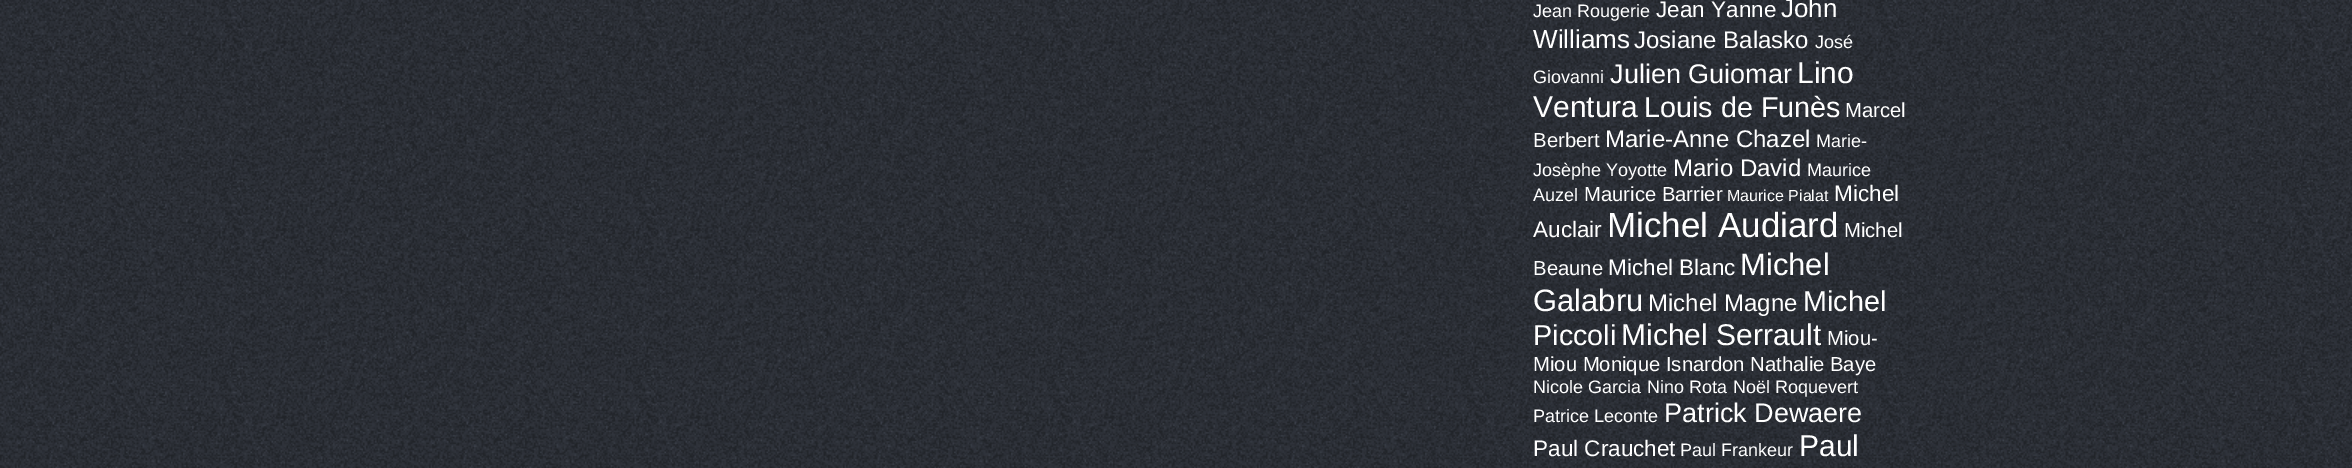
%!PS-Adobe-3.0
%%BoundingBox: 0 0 2352 468
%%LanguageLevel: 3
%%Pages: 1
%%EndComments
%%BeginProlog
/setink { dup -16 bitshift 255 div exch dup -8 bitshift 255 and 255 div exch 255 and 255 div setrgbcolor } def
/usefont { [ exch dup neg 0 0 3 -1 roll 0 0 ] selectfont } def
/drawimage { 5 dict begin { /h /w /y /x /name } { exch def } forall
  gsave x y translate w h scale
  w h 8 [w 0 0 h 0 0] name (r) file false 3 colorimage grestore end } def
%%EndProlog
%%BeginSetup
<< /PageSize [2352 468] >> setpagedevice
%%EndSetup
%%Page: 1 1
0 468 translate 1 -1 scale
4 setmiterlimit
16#FFFFFF setink
0 0 2352 468 rectfill
(img1.raw) 0 0 2352 468 drawimage
/LiberationSans-Regular 18 usefont
1533 17 moveto (Jean Rougerie) show
/LiberationSans-Regular 22.5 usefont
1656 17 moveto (Jean Yanne) show
/LiberationSans-Regular 26 usefont
1781 17 moveto (John) show
1533 48 moveto (Williams) show
/LiberationSans-Regular 24 usefont
1634 48 moveto (Josiane Balasko) show
/LiberationSans-Regular 18 usefont
1815 48 moveto (José) show
1533 83 moveto (Giovanni) show
/LiberationSans-Regular 27 usefont
1610 83 moveto (Julien Guiomar) show
/LiberationSans-Regular 30 usefont
1797 83 moveto (Lino) show
1533 117 moveto (Ventura) show
/LiberationSans-Regular 28.75 usefont
1644 117 moveto (Louis de Funès) show
/LiberationSans-Regular 20.25 usefont
1845 117 moveto (Marcel) show
1533 147 moveto (Berbert) show
/LiberationSans-Regular 24 usefont
1605 147 moveto (Marie-Anne Chazel) show
/LiberationSans-Regular 18 usefont
1816 147 moveto (Marie-) show
1533 176 moveto (Josèphe Yoyotte) show
/LiberationSans-Regular 24 usefont
1673 176 moveto (Mario David) show
/LiberationSans-Regular 18 usefont
1807 176 moveto (Maurice) show
1533 201 moveto (Auzel) show
/LiberationSans-Regular 20.25 usefont
1584 201 moveto (Maurice Barrier) show
/LiberationSans-Regular 16 usefont
1727 201 moveto (Maurice Pialat) show
/LiberationSans-Regular 22.5 usefont
1834 201 moveto (Michel) show
1533 237 moveto (Auclair) show
/LiberationSans-Regular 35 usefont
1607 237 moveto (Michel Audiard) show
/LiberationSans-Regular 20.25 usefont
1844 237 moveto (Michel) show
1533 275 moveto (Beaune) show
/LiberationSans-Regular 22.5 usefont
1608 275 moveto (Michel Blanc) show
/LiberationSans-Regular 31 usefont
1740 275 moveto (Michel) show
1533 311 moveto (Galabru) show
/LiberationSans-Regular 24 usefont
1648 311 moveto (Michel Magne) show
/LiberationSans-Regular 28.75 usefont
1803 311 moveto (Michel) show
1533 345 moveto (Piccoli) show
/LiberationSans-Regular 30 usefont
1621 345 moveto (Michel Serrault) show
/LiberationSans-Regular 20.25 usefont
[
    [(Miou-) 1827 345]
    [(Miou Monique Isnardon) 1533 371]
    [(Nathalie Baye) 1750 371]
] { aload pop moveto show } forall
/LiberationSans-Regular 18 usefont
[
    [(Nicole Garcia) 1533 393]
    [(Nino Rota) 1647 393]
    [(Noël Roquevert) 1733 393]
    [(Patrice Leconte) 1533 422]
] { aload pop moveto show } forall
/LiberationSans-Regular 27 usefont
1664 422 moveto (Patrick Dewaere) show
/LiberationSans-Regular 22.5 usefont
1533 456 moveto (Paul Crauchet) show
/LiberationSans-Regular 18 usefont
1680 456 moveto (Paul Frankeur) show
/LiberationSans-Regular 30 usefont
1799 456 moveto (Paul) show
showpage
%%EOF
